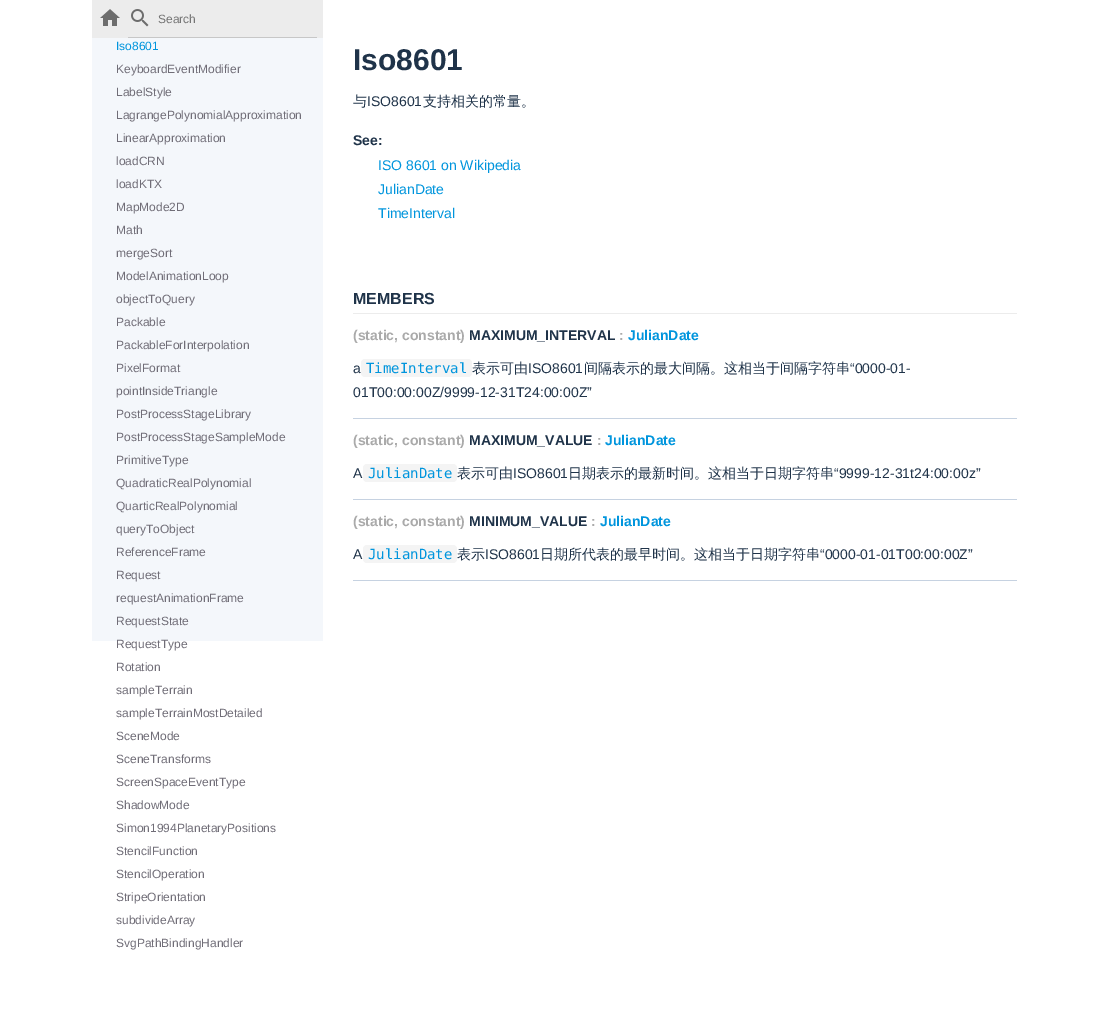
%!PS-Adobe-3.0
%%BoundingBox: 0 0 1109 1032
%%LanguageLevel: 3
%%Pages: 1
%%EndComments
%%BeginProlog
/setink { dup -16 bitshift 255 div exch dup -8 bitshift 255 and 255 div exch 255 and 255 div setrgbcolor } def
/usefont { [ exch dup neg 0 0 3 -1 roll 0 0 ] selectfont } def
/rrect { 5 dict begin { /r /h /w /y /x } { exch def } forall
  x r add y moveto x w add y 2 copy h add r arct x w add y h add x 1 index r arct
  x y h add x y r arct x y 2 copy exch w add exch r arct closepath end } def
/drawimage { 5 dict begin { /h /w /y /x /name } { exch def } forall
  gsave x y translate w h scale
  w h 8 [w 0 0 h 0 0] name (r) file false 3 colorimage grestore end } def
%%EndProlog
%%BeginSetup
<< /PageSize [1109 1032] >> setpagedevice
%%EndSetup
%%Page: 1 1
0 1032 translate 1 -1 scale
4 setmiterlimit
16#FFFFFF setink
0 0 1109 1032 rectfill
16#F4F7FB setink
92 38 231 603 rectfill
16#ECECEC setink
92 0 231 38 rectfill
(img1.raw) 100 9 20 17 drawimage
(img2.raw) 131 9 18 18 drawimage
16#C7C7C7 setink
128 37 189 1 rectfill
/LiberationSans-Regular 12 usefont
16#757575 setink
158 23 moveto (Search) show
16#0095DD setink
116 50 moveto (Iso8601) show
16#706D77 setink
[
    [(KeyboardEventModifier) 116 73]
    [(LabelStyle) 116 96]
    [(LagrangePolynomialApproximation) 116 119]
    [(LinearApproximation) 116 142]
    [(loadCRN) 116 165]
    [(loadKTX) 116 188]
    [(MapMode2D) 116 211]
    [(Math) 116 234]
    [(mergeSort) 116 257]
    [(ModelAnimationLoop) 116 280]
    [(objectToQuery) 116 303]
    [(Packable) 116 326]
    [(PackableForInterpolation) 116 349]
    [(PixelFormat) 116 372]
    [(pointInsideTriangle) 116 395]
    [(PostProcessStageLibrary) 116 418]
    [(PostProcessStageSampleMode) 116 441]
    [(PrimitiveType) 116 464]
    [(QuadraticRealPolynomial) 116 487]
    [(QuarticRealPolynomial) 116 510]
    [(queryToObject) 116 533]
    [(ReferenceFrame) 116 556]
    [(Request) 116 579]
    [(requestAnimationFrame) 116 602]
    [(RequestState) 116 625]
    [(RequestType) 116 648]
    [(Rotation) 116 671]
    [(sampleTerrain) 116 694]
    [(sampleTerrainMostDetailed) 116 717]
    [(SceneMode) 116 740]
    [(SceneTransforms) 116 763]
    [(ScreenSpaceEventType) 116 786]
    [(ShadowMode) 116 809]
    [(Simon1994PlanetaryPositions) 116 832]
    [(StencilFunction) 116 855]
    [(StencilOperation) 116 878]
    [(StripeOrientation) 116 901]
    [(subdivideArray) 116 924]
    [(SvgPathBindingHandler) 116 947]
] { aload pop moveto show } forall
/LiberationSans-Bold 30 usefont
16#1F3349 setink
353 70 moveto (Iso8601) show
/WenQuanYiZenHei-Medium 14 usefont
353 106 moveto (与) show
/LiberationSans-Regular 14 usefont
367 106 moveto (ISO8601) show
/WenQuanYiZenHei-Medium 14 usefont
423 106 moveto (支持相关的常量。) show
/LiberationSans-Bold 14 usefont
353 145 moveto (See:) show
/LiberationSans-Regular 14 usefont
16#0095DD setink
[
    [(ISO 8601 on Wikipedia) 378 170]
    [(JulianDate) 378 194]
    [(TimeInterval) 378 218]
] { aload pop moveto show } forall
16#ECECEC setink
353 313 664 1 rectfill
/LiberationSans-Bold 16 usefont
16#1F3349 setink
353 304 moveto (MEMBERS) show
/LiberationSans-Bold 14 usefont
16#AAAAAA setink
353 340 moveto (\(static, constant\)) show
16#1F3349 setink
469 340 moveto (MAXIMUM_INTERVAL) show
16#AAAAAA setink
619 340 moveto (:) show
16#0095DD setink
628 340 moveto (JulianDate) show
/LiberationSans-Regular 14 usefont
16#1F3349 setink
353 373 moveto (a) show
16#F4F4F4 setink
361 359 111 18 4 rrect fill
/DejaVuSansMono-Regular 14 usefont
16#0095DD setink
366 373 moveto (TimeInterval) show
/WenQuanYiZenHei-Medium 14 usefont
16#1F3349 setink
472 373 moveto (表示可由) show
/LiberationSans-Regular 14 usefont
528 373 moveto (ISO8601) show
/WenQuanYiZenHei-Medium 14 usefont
584 373 moveto (间隔表示的最大间隔。这相当于间隔字符串) show
/LiberationSans-Regular 14 usefont
850 373 moveto (“0000-01-) show
353 397 moveto (01T00:00:00Z/9999-12-31T24:00:00Z”) show
16#C6D2E1 setink
353 418 664 1 rectfill
/LiberationSans-Bold 14 usefont
16#AAAAAA setink
353 445 moveto (\(static, constant\)) show
16#1F3349 setink
469 445 moveto (MAXIMUM_VALUE) show
16#AAAAAA setink
597 445 moveto (:) show
16#0095DD setink
605 445 moveto (JulianDate) show
/LiberationSans-Regular 14 usefont
16#1F3349 setink
353 478 moveto (A) show
16#F4F4F4 setink
363 464 94 18 4 rrect fill
/DejaVuSansMono-Regular 14 usefont
16#0095DD setink
368 478 moveto (JulianDate) show
/WenQuanYiZenHei-Medium 14 usefont
16#1F3349 setink
457 478 moveto (表示可由) show
/LiberationSans-Regular 14 usefont
513 478 moveto (ISO8601) show
/WenQuanYiZenHei-Medium 14 usefont
568 478 moveto (日期表示的最新时间。这相当于日期字符串) show
/LiberationSans-Regular 14 usefont
834 478 moveto (“9999-12-31t24:00:00z”) show
16#C6D2E1 setink
353 499 664 1 rectfill
/LiberationSans-Bold 14 usefont
16#AAAAAA setink
353 526 moveto (\(static, constant\)) show
16#1F3349 setink
469 526 moveto (MINIMUM_VALUE) show
16#AAAAAA setink
591 526 moveto (:) show
16#0095DD setink
600 526 moveto (JulianDate) show
/LiberationSans-Regular 14 usefont
16#1F3349 setink
353 559 moveto (A) show
16#F4F4F4 setink
363 545 94 18 4 rrect fill
/DejaVuSansMono-Regular 14 usefont
16#0095DD setink
368 559 moveto (JulianDate) show
/WenQuanYiZenHei-Medium 14 usefont
16#1F3349 setink
457 559 moveto (表示) show
/LiberationSans-Regular 14 usefont
485 559 moveto (ISO8601) show
/WenQuanYiZenHei-Medium 14 usefont
540 559 moveto (日期所代表的最早时间。这相当于日期字符串) show
/LiberationSans-Regular 14 usefont
820 559 moveto (“0000-01-01T00:00:00Z”) show
16#C6D2E1 setink
353 580 664 1 rectfill
showpage
%%EOF
